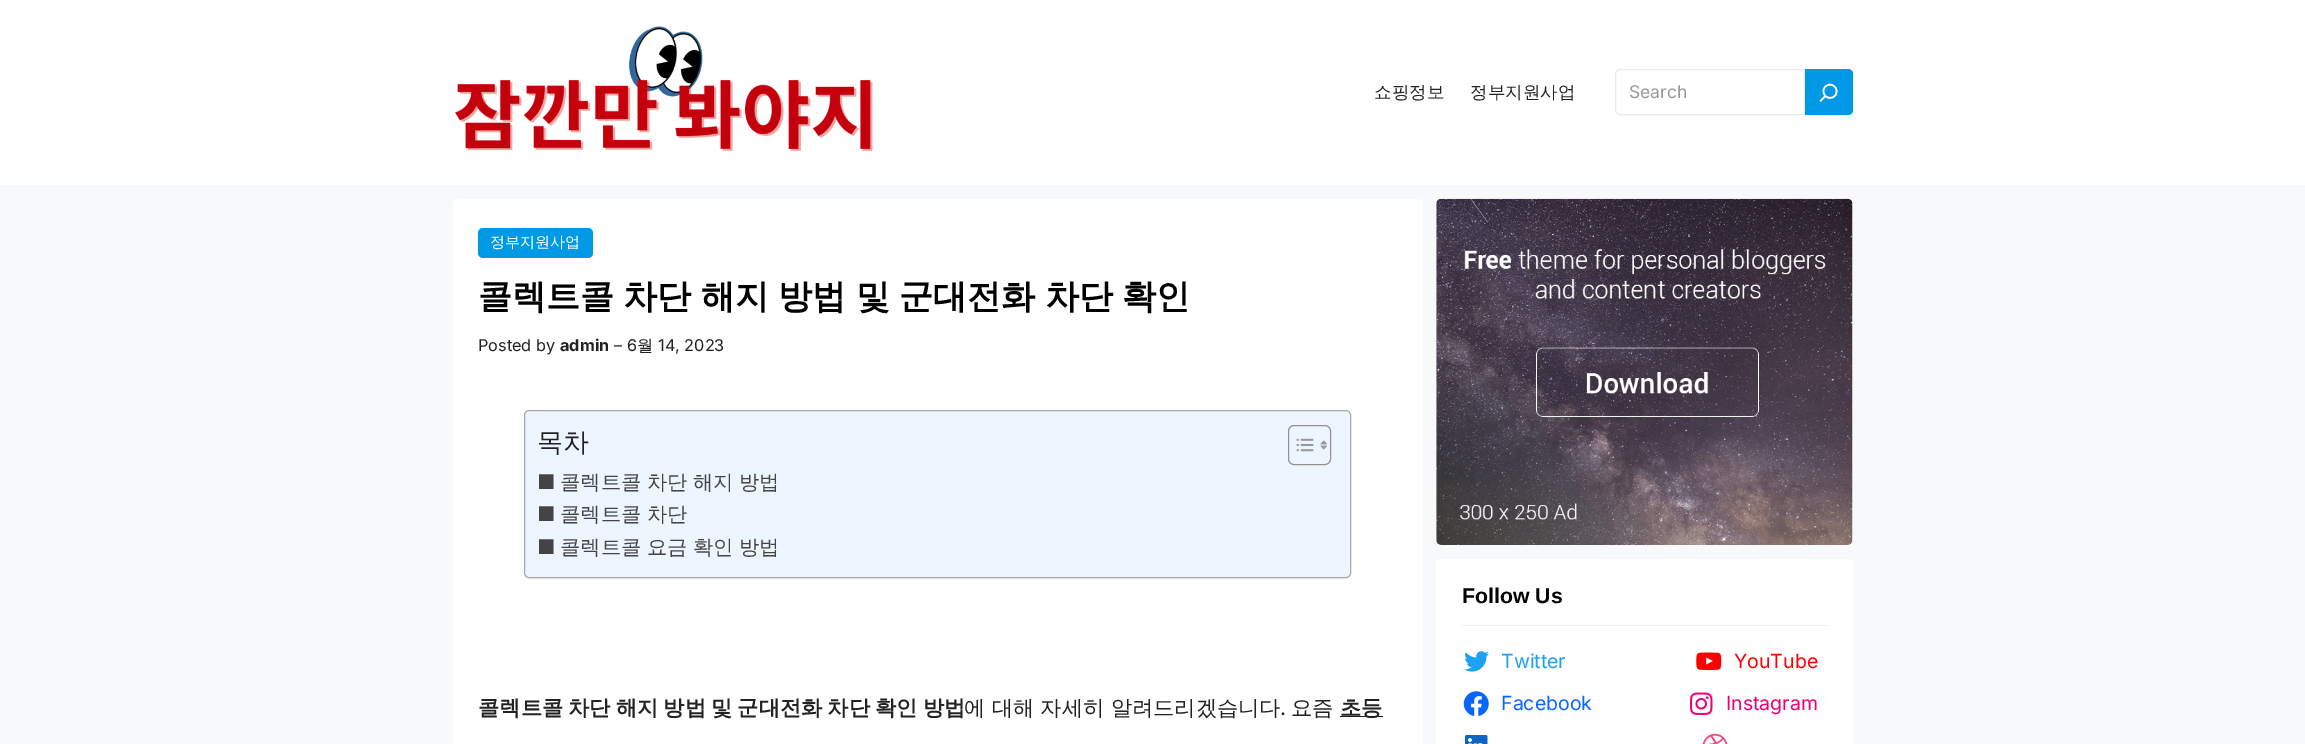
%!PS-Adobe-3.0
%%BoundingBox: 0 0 2305 744
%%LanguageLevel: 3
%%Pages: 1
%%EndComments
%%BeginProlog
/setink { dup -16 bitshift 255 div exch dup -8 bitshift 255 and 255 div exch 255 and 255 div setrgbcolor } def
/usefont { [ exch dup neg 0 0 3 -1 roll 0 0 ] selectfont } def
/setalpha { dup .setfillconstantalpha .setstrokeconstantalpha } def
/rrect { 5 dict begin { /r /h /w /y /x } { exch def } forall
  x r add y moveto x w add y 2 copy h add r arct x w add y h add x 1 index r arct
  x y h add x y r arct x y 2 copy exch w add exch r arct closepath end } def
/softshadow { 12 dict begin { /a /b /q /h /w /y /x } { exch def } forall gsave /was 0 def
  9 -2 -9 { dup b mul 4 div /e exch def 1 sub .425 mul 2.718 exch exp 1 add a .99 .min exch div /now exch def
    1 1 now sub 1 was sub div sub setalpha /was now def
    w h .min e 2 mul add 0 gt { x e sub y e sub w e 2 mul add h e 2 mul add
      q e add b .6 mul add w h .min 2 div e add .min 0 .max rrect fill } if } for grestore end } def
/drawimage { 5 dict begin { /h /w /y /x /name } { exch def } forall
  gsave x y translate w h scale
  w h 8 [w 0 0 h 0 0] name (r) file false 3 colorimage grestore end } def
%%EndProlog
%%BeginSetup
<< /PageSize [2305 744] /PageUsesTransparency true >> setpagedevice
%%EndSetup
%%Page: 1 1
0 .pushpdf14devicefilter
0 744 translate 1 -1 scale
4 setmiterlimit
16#F7F9FA setink
0 0 2305 744 rectfill
16#FFFFFF setink
0 0 2305 185 rectfill
(img1.raw) 455 26 418 125 drawimage
/WenQuanYiZenHei-Medium 17.5 usefont
16#222222 setink
1374 98 moveto (쇼핑정보) show
1470 98 moveto (정부지원사업) show
16#E9E9E9 setink
1620 69.5 moveto 1804.5 69.5 lineto 1804.5 114.5 lineto 1620 114.5 lineto 1617.5 114.5 1615.5 112.5 1615.5 110 curveto 1615.5 74 lineto 1615.5 71.5 1617.5 69.5 1620 69.5 curveto closepath stroke
/Inter-Regular 17.5 usefont
16#999999 setink
1629 98 moveto (Search) show
16#0099E5 setink
1805 69 moveto 1848 69 lineto 1851 69 1853 71 1853 74 curveto 1853 110 lineto 1853 113 1851 115 1848 115 curveto 1805 115 lineto closepath fill
(img2.raw) 1819 83 19 19 drawimage
16#FFFFFF setink
453 199 970 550 5 rrect fill
16#0099E5 setink
478 228 115 30 5 rrect fill
/WenQuanYiZenHei-Medium 15 usefont
16#FFFFFF setink
490 247 moveto (정부지원사업) show
/WenQuanYiZenHei-Bold 34 usefont
16#000000 setink
478 308 moveto -0.75 0 32 (콜렉트콜 차단 해지 방법 및 군대전화 차단 확인) widthshow
/Inter-Regular 16.25 usefont
16#222222 setink
478 351 moveto (Posted by) show
/Inter-Bold 16.25 usefont
560 351 moveto (admin) show
/Inter-Regular 16.25 usefont
614 351 moveto (–) show
627 351 moveto (6) show
/WenQuanYiZenHei-Medium 16.25 usefont
637 351 moveto (월) show
/Inter-Regular 16.25 usefont
658 351 moveto (14, 2023) show
16#000000 setink
524 411 827 168 5 0.5 0.05 softshadow
16#EDF6FF setink
524.5 410.5 826 167 4.5 rrect gsave fill grestore
16#AAAAAA setink
stroke
/WenQuanYiZenHei-Medium 26 usefont
16#222222 setink
537 451 moveto (목차) show
16#999191 setink
1288.5 425.5 42 39 5.5 rrect stroke
(img3.raw) 1296 438 18 14 drawimage
(img4.raw) 1320 440 7 10 drawimage
/Inter-Regular 20.25 usefont
16#444444 setink
537 489 moveto (■) show
/WenQuanYiZenHei-Medium 20.25 usefont
560 489 moveto -0.5 0 32 (콜렉트콜 차단 해지 방법) widthshow
/Inter-Regular 20.25 usefont
537 521 moveto (■) show
/WenQuanYiZenHei-Medium 20.25 usefont
560 521 moveto -0.5 0 32 (콜렉트콜 차단) widthshow
/Inter-Regular 20.25 usefont
537 554 moveto (■) show
/WenQuanYiZenHei-Medium 20.25 usefont
560 554 moveto -0.5 0 32 (콜렉트콜 요금 확인 방법) widthshow
/WenQuanYiZenHei-Bold 21.25 usefont
16#222222 setink
478 715 moveto -1.25 0 32 (콜렉트콜 차단 해지 방법 및 군대전화 차단 확인 방법) widthshow
/WenQuanYiZenHei-Medium 21.25 usefont
964 715 moveto (에 대해 자세히 알려드리겠습니다) show
/Inter-Regular 21.25 usefont
1280 715 moveto (.) show
/WenQuanYiZenHei-Medium 21.25 usefont
1291 715 moveto (요즘) show
1340 716 43 1 rectfill
/WenQuanYiZenHei-Bold 21.25 usefont
1340 715 moveto (초등) show
(img5.raw) 1436 198 417 347 drawimage
16#FFFFFF setink
1436 559 417 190 5 rrect fill
16#F0F0F0 setink
1461 625 367 1 rectfill
/LiberationSans-Bold 21.25 usefont
16#000000 setink
1462 603 moveto (Follow Us) show
(img6.raw) 1464 651 25 21 drawimage
/Inter-Regular 19.5 usefont
16#1DA1F2 setink
1501 668 moveto (Twitter) show
(img7.raw) 1696 652 26 19 drawimage
16#FF0000 setink
1734 668 moveto (YouTube) show
(img8.raw) 1463 691 26 26 drawimage
16#0866FF setink
1501 710 moveto (Facebook) show
(img9.raw) 1690 692 23 23 drawimage
16#F00075 setink
1726 710 moveto (Instagram) show
(img10.raw) 1465 735 23 9 drawimage
(img11.raw) 1702 733 26 11 drawimage
.poppdf14devicefilter showpage
%%EOF
